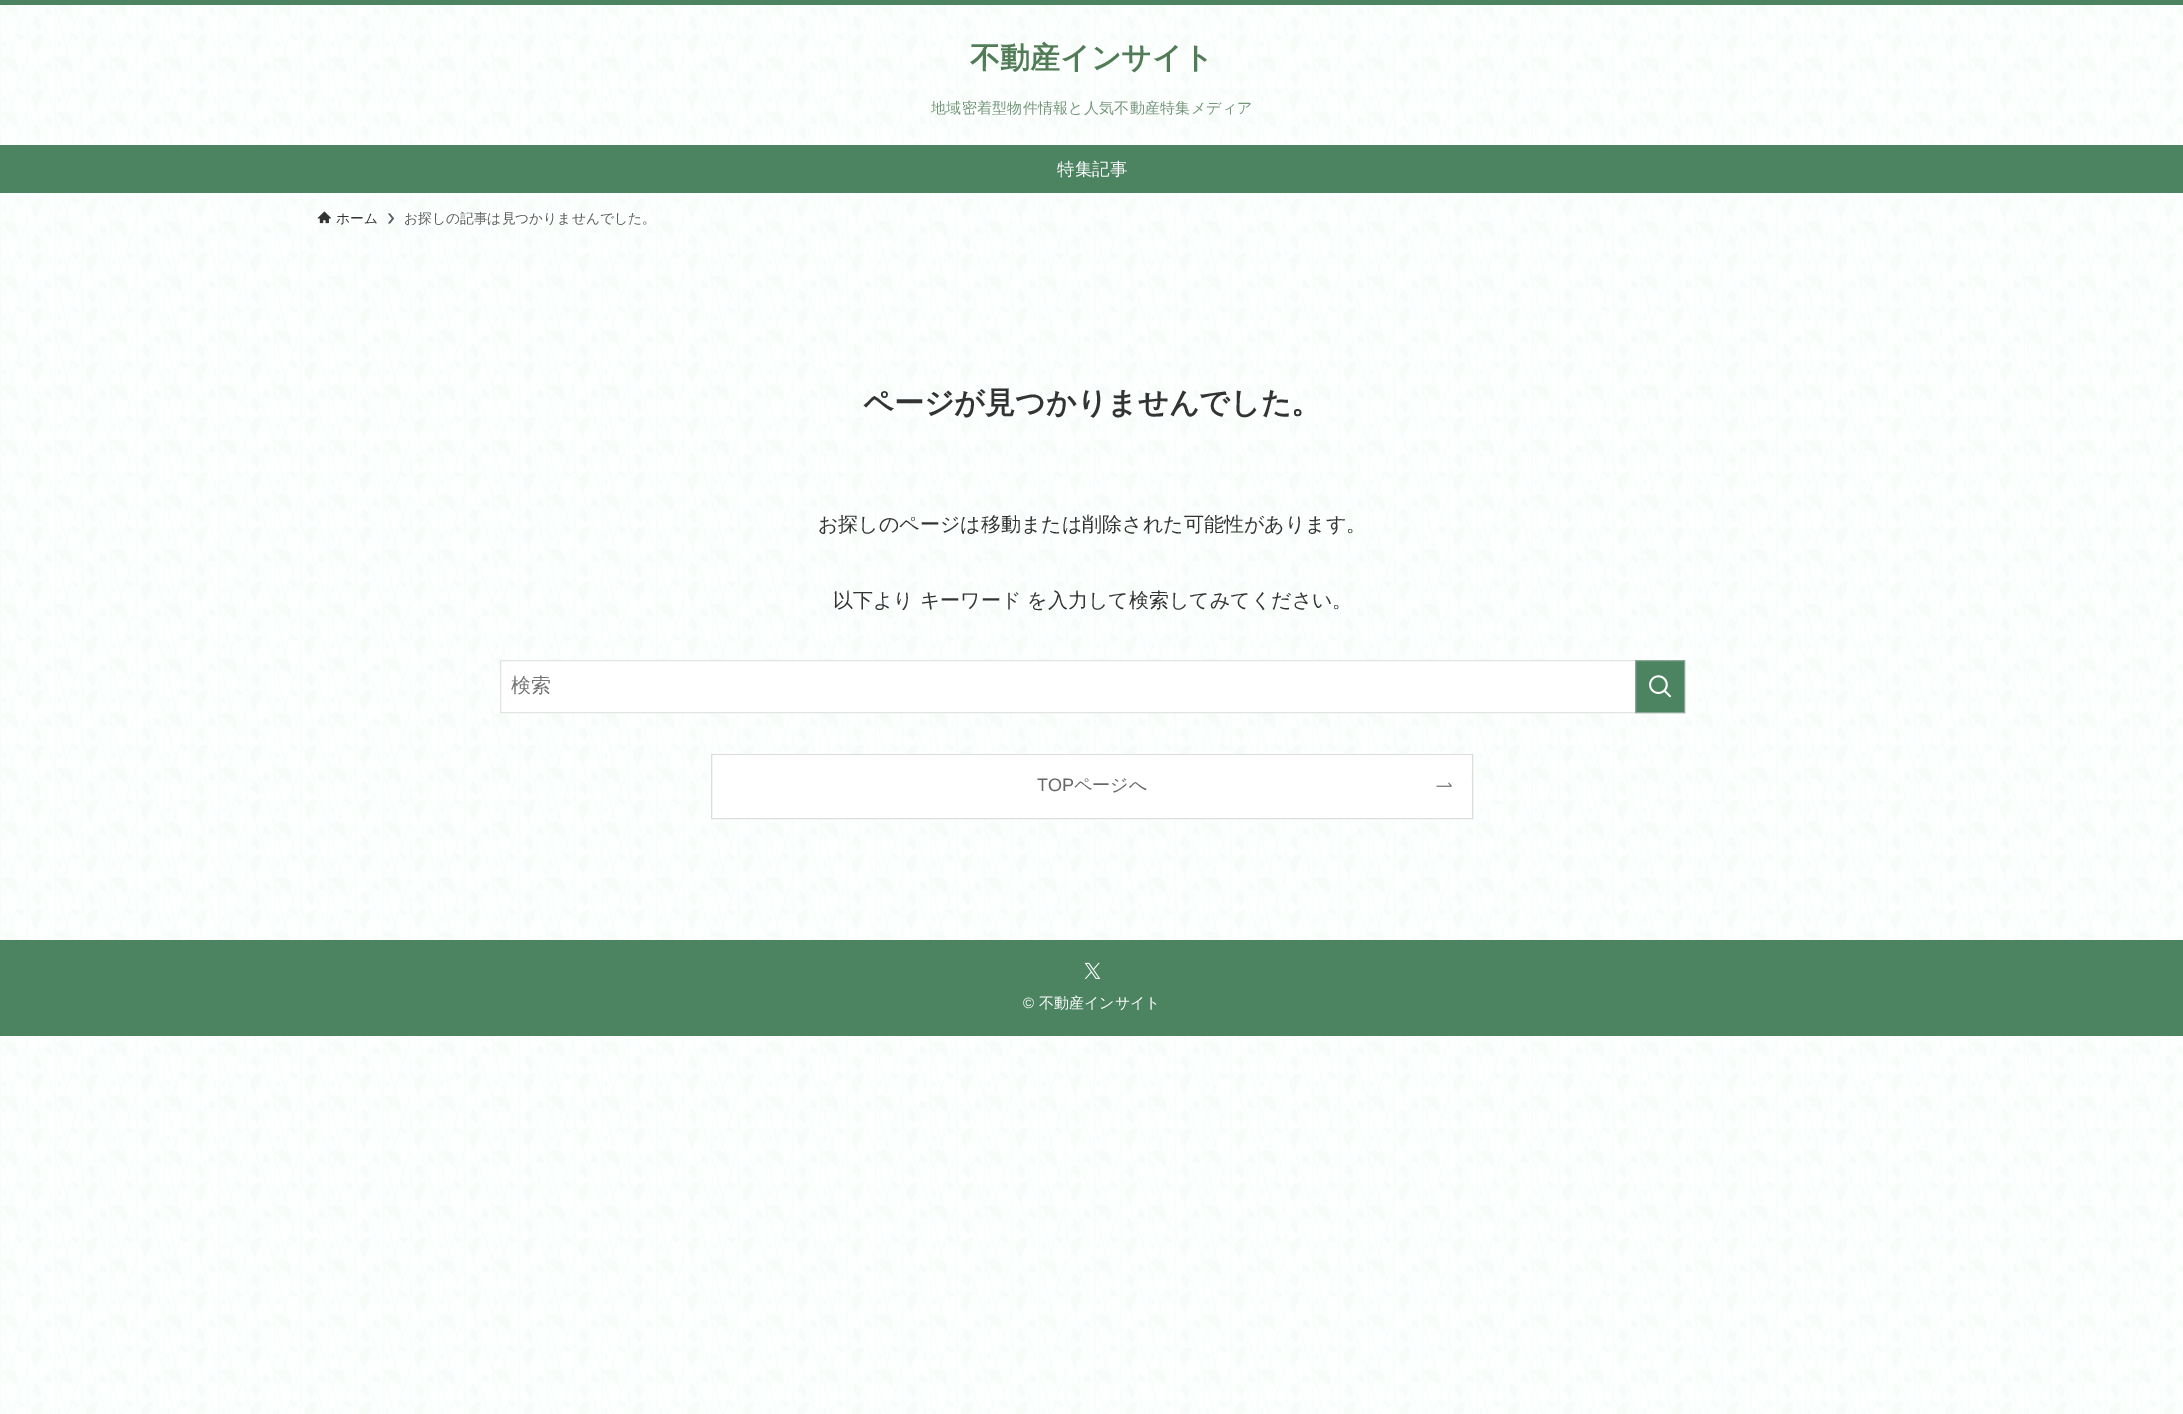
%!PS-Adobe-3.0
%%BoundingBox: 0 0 2183 1414
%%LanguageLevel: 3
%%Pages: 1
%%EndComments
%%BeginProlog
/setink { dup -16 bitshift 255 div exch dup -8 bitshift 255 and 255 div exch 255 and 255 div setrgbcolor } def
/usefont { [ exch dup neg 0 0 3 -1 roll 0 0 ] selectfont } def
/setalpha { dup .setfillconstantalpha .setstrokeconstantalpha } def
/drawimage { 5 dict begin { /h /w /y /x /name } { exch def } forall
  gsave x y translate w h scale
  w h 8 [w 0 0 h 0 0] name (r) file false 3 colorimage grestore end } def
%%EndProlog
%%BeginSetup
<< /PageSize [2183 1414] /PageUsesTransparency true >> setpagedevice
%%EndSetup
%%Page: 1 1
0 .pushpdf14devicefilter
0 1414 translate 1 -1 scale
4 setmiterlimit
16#FCFFFE setink
0 0 2183 1414 rectfill
(img1.raw) 0 5 2183 1409 drawimage
16#4C8462 setink
0 0 2183 5 rectfill
/WenQuanYiZenHei-Bold 30 usefont
16#527C57 setink
970 68 moveto (不動産インサイト) show
/WenQuanYiZenHei-Medium 15 usefont
16#749678 setink
931 113 moveto 0.25 0 (地域密着型物件情報と人気不動産特集メディア) ashow
16#4C8462 setink
0 145 2183 48 rectfill
/WenQuanYiZenHei-Medium 17.5 usefont
16#FFFFFF setink
1057 175 moveto (特集記事) show
(img2.raw) 317 211 15 13 drawimage
/WenQuanYiZenHei-Medium 13.75 usefont
16#333333 setink
336 223 moveto (ホーム) show
0.8 setalpha
390 213.5 moveto 388 213.5 lineto 392 218.5 lineto 388 223.5 lineto 390 223.5 lineto 394 218.5 lineto closepath fill
1 setalpha
16#5B5C5B setink
404 223 moveto (お探しの記事は見つかりませんでした。) show
/WenQuanYiZenHei-Bold 30 usefont
16#333333 setink
863 413 moveto (ページが見つかりませんでした。) show
/WenQuanYiZenHei-Medium 20 usefont
818 531 moveto (お探しのページは移動または削除された可能性があります。) show
833 607 moveto (以下より キーワード を入力して検索してみてください。) show
16#FFFFFF setink
501 661 1134 51 rectfill
16#E3E3E3 setink
500.5 660.5 1184 52 rectstroke
16#757575 setink
511 692 moveto (検索) show
16#4C8462 setink
1635.5 660.5 moveto 1684.5 660.5 lineto 1684.5 712.5 lineto 1635.5 712.5 lineto closepath gsave fill grestore
16#8AA695 setink
stroke
(img3.raw) 1649 675 22 23 drawimage
16#DCDCDC setink
711.5 754.5 761 64 rectstroke
16#FFFFFF setink
713 755 758 63 rectfill
/LiberationSans-Regular 18 usefont
16#666666 setink
1037 791 moveto (TOP) show
/WenQuanYiZenHei-Medium 18 usefont
1074 791 moveto (ページへ) show
(img4.raw) 1436 782 16 5 drawimage
16#4C8462 setink
0 940 2183 96 rectfill
(img5.raw) 1084 962 17 17 drawimage
/LiberationSans-Regular 15 usefont
16#FFFFFF setink
1023 1008 moveto (©) show
/WenQuanYiZenHei-Medium 15 usefont
1039 1008 moveto (不動産インサイト) show
.poppdf14devicefilter showpage
%%EOF
